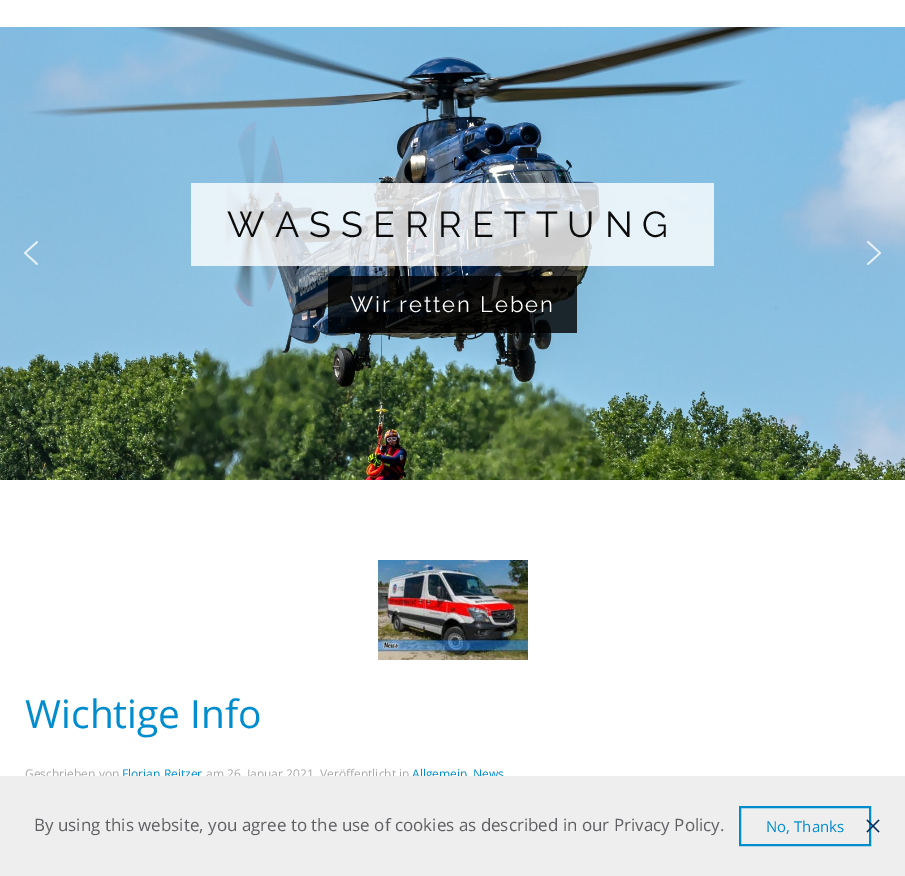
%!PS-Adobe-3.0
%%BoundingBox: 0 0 905 876
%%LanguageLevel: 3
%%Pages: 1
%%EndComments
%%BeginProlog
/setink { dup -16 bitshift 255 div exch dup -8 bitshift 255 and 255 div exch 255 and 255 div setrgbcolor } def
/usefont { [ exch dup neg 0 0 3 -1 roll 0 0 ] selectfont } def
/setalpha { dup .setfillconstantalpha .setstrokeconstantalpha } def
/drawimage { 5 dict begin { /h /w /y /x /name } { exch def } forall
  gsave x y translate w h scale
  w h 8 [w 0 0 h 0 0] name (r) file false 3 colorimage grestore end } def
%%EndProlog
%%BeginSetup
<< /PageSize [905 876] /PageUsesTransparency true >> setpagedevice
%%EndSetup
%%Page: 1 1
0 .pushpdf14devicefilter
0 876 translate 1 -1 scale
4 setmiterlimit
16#FFFFFF setink
0 0 905 876 rectfill
(img2.raw) 0 27 905 453 drawimage
(img1.raw) 24 241 14 24 drawimage
0.8 setalpha
191 183 523 83 rectfill
/Raleway-Regular 36 usefont
1 setalpha
16#0B0B0B setink
227 237 moveto 10 0 (WASSERRETTUNG) ashow
0.8 setalpha
16#000000 setink
328 276 249 57 rectfill
/Raleway-Regular 22 usefont
1 setalpha
16#FFFFFF setink
350 312 moveto 2 0 (Wir retten Leben) ashow
(img3.raw) 867 241 14 24 drawimage
(img4.raw) 378 560 150 100 drawimage
/OpenSans-Regular 39 usefont
16#008CCD setink
25 728 moveto (Wichtige Info) show
/OpenSans-Regular 12 usefont
16#A7A7A7 setink
25 778 moveto (Geschrieben von) show
16#008CCD setink
122 778 moveto (Florian Reitzer) show
16#A7A7A7 setink
206 778 moveto (am 26. Januar 2021) show
320 778 moveto (Veröffentlicht in) show
16#008CCD setink
412 778 moveto (Allgemein) show
473 778 moveto (News) show
16#EEEEEE setink
0 776 905 100 rectfill
/OpenSans-Regular 17 usefont
16#5F5F63 setink
34 831 moveto (By using this website, you agree to the use of cookies as described in our Privacy Policy.) show
16#008CCD setink
2 setlinewidth
740 807 130 38 rectstroke
/OpenSans-Regular 15 usefont
766 832 moveto (No, Thanks) show
16#002D55 setink
1.1 setlinewidth
867 820 moveto 879 832 lineto 879 820 moveto 867 832 lineto stroke
.poppdf14devicefilter showpage
%%EOF
